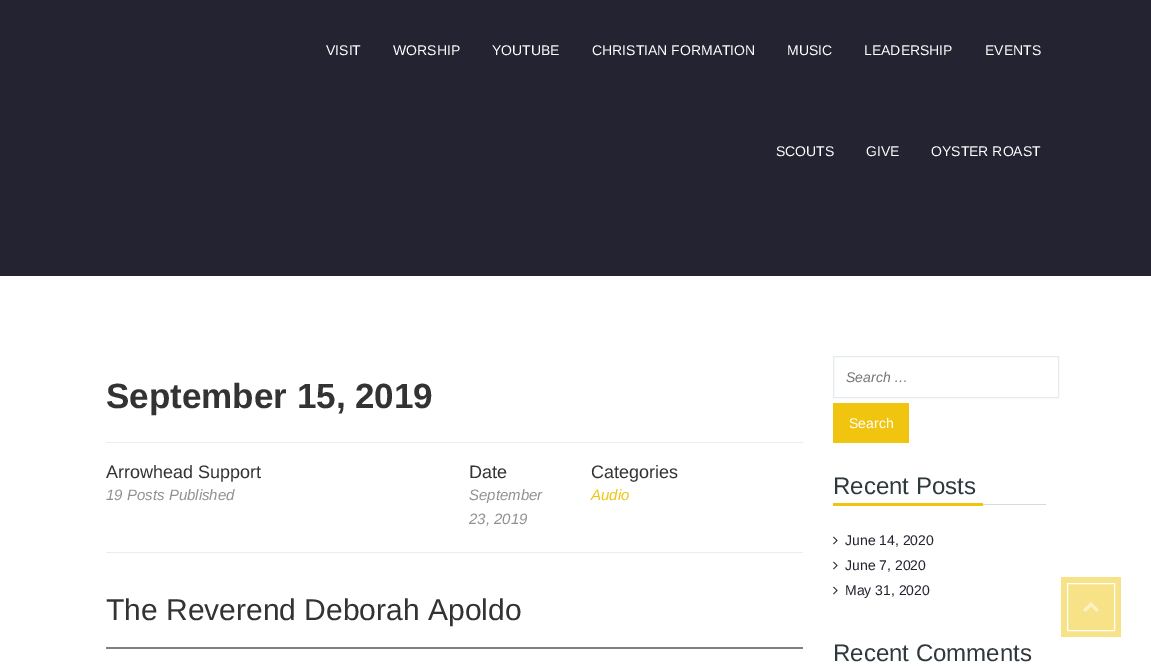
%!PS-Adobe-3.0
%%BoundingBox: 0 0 1151 667
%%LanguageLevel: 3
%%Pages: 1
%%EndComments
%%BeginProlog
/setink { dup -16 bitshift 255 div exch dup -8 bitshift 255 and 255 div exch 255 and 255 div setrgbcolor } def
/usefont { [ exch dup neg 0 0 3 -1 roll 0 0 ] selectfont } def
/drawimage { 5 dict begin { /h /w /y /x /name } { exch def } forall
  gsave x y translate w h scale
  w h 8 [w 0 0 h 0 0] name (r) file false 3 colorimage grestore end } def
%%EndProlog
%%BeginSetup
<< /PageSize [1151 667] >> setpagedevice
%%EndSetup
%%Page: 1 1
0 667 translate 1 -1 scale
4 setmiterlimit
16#FFFFFF setink
0 0 1151 667 rectfill
16#232331 setink
0 0 1151 276 rectfill
/LiberationSans-Regular 14 usefont
16#FFFFFF setink
[
    [(VISIT) 326 55]
    [(WORSHIP) 393 55]
    [(YOUTUBE) 492 55]
    [(CHRISTIAN FORMATION) 592 55]
    [(MUSIC) 787 55]
    [(LEADERSHIP) 864 55]
    [(EVENTS) 985 55]
    [(SCOUTS) 776 156]
    [(GIVE) 866 156]
    [(OYSTER ROAST) 931 156]
] { aload pop moveto show } forall
16#EDEDED setink
106 442 697 1 rectfill
/LiberationSans-Bold 35 usefont
16#333333 setink
106 408 moveto (September 15, 2019) show
16#EDEDED setink
106 552 697 1 rectfill
/LiberationSans-Regular 18 usefont
16#333333 setink
106 478 moveto (Arrowhead Support) show
/LiberationSans-Italic 15 usefont
16#909292 setink
106 500 moveto (19 Posts Published) show
/LiberationSans-Regular 18 usefont
16#333333 setink
469 478 moveto (Date) show
/LiberationSans-Italic 15 usefont
16#909292 setink
469 500 moveto (September) show
469 524 moveto (23, 2019) show
/LiberationSans-Regular 18 usefont
16#333333 setink
591 478 moveto (Categories) show
/LiberationSans-Italic 15 usefont
16#F1C40F setink
591 500 moveto (Audio) show
/LiberationSans-Regular 30 usefont
16#333333 setink
106 620 moveto (The Reverend Deborah Apoldo) show
16#808080 setink
106 647 697 2 rectfill
16#E5ECEF setink
833.5 356.5 225 41 rectstroke
/LiberationSans-Italic 14 usefont
16#757575 setink
846 382 moveto (Search …) show
16#F1C40F setink
833 403 76 40 rectfill
/LiberationSans-Regular 14 usefont
16#FFFFFF setink
849 428 moveto (Search) show
16#D5DADD setink
983 504 63 1 rectfill
/LiberationSans-Regular 24 usefont
16#2F383D setink
833 494 moveto (Recent Posts) show
16#F1C40F setink
833 503 150 3 rectfill
(img1.raw) 833 536 5 9 drawimage
/LiberationSans-Regular 14 usefont
16#232331 setink
845 545 moveto (June 14, 2020) show
(img1.raw) 833 561 5 9 drawimage
845 570 moveto (June 7, 2020) show
(img1.raw) 833 586 5 9 drawimage
845 595 moveto (May 31, 2020) show
/LiberationSans-Regular 24 usefont
16#2F383D setink
833 661 moveto (Recent Comments) show
16#F8E287 setink
1061 577 60 60 rectfill
(img2.raw) 1083 602 16 10 drawimage
16#FFFFFF setink
1067.5 583.5 47 47 rectstroke
showpage
%%EOF
